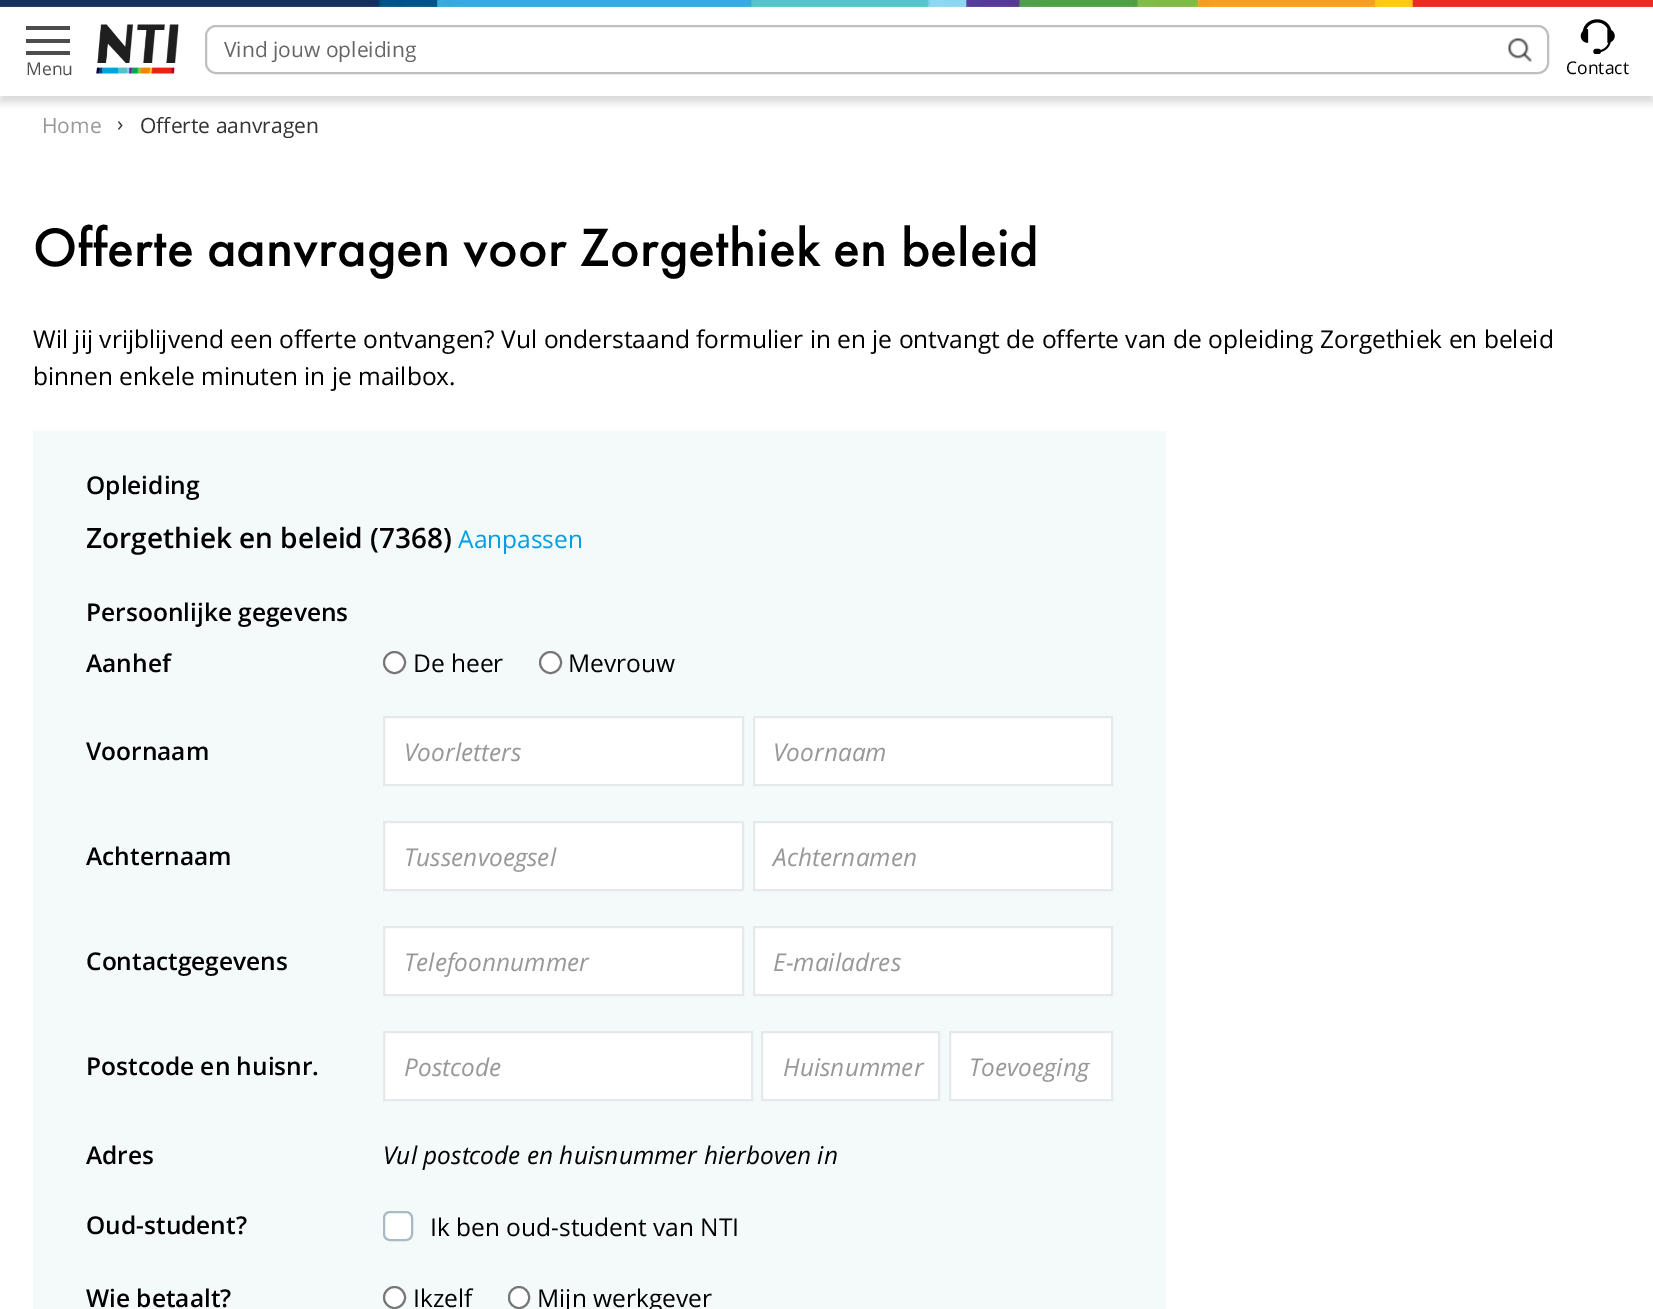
%!PS-Adobe-3.0
%%BoundingBox: 0 0 1653 1309
%%LanguageLevel: 3
%%Pages: 1
%%EndComments
%%BeginProlog
/setink { dup -16 bitshift 255 div exch dup -8 bitshift 255 and 255 div exch 255 and 255 div setrgbcolor } def
/usefont { [ exch dup neg 0 0 3 -1 roll 0 0 ] selectfont } def
/setalpha { dup .setfillconstantalpha .setstrokeconstantalpha } def
/disc { newpath 0 360 arc closepath } def
/rrect { 5 dict begin { /r /h /w /y /x } { exch def } forall
  x r add y moveto x w add y 2 copy h add r arct x w add y h add x 1 index r arct
  x y h add x y r arct x y 2 copy exch w add exch r arct closepath end } def
/softshadow { 12 dict begin { /a /b /q /h /w /y /x } { exch def } forall gsave /was 0 def
  9 -2 -9 { dup b mul 4 div /e exch def 1 sub .425 mul 2.718 exch exp 1 add a .99 .min exch div /now exch def
    1 1 now sub 1 was sub div sub setalpha /was now def
    w h .min e 2 mul add 0 gt { x e sub y e sub w e 2 mul add h e 2 mul add
      q e add b .6 mul add w h .min 2 div e add .min 0 .max rrect fill } if } for grestore end } def
/drawimage { 5 dict begin { /h /w /y /x /name } { exch def } forall
  gsave x y translate w h scale
  w h 8 [w 0 0 h 0 0] name (r) file false 3 colorimage grestore end } def
%%EndProlog
%%BeginSetup
<< /PageSize [1653 1309] /PageUsesTransparency true >> setpagedevice
%%EndSetup
%%Page: 1 1
0 .pushpdf14devicefilter
0 1309 translate 1 -1 scale
4 setmiterlimit
16#FFFFFF setink
0 0 1653 1309 rectfill
gsave
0 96 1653 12 rectclip
16#000000 setink
0 5 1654 97 0 5 0.16 softshadow
grestore
(img1.raw) 0 0 1653 7 drawimage
(img2.raw) 96 24 83 50 drawimage
16#BFBFBF setink
2 setlinewidth
206 26 1342 47 10 rrect stroke
/OpenSans-Regular 21 usefont
16#666666 setink
224 57 moveto (Vind jouw opleiding) show
(img3.raw) 1508 38 24 24 drawimage
[
    [26 39 44 4 16#4D4D4D]
    [26 26 44 4 16#4D4D4D]
    [26 51 44 4 16#4D4D4D]
] { aload pop setink rectfill } forall
/OpenSans-Regular 17.5 usefont
26 75 moveto (Menu) show
(img4.raw) 1580 19 35 35 drawimage
16#000000 setink
1566 74 moveto (Contact) show
/OpenSans-Regular 21 usefont
16#989898 setink
42 133 moveto (Home) show
16#333333 setink
117 131 moveto (›) show
140 133 moveto (Offerte aanvragen) show
/FuturaPT-Medium 56 usefont
16#000000 setink
33 266 moveto (Offerte aanvragen voor Zorgethiek en beleid) show
/OpenSans-Regular 24.5 usefont
33 348 moveto (Wil jij vrijblijvend een offerte ontvangen? Vul onderstaand formulier in en je ontvangt de offerte van de opleiding Zorgethiek en beleid) show
33 385 moveto (binnen enkele minuten in je mailbox.) show
16#F4F9FA setink
33 431 1133 878 rectfill
/OpenSans-SemiBold 24.5 usefont
16#000000 setink
86 494 moveto (Opleiding) show
/OpenSans-SemiBold 28 usefont
86 548 moveto (Zorgethiek en beleid \(7368\)) show
/OpenSans-Regular 24.5 usefont
16#009FE3 setink
458 548 moveto (Aanpassen) show
/OpenSans-SemiBold 24.5 usefont
16#000000 setink
86 621 moveto (Persoonlijke gegevens) show
86 672 moveto (Aanhef) show
16#FFFFFF setink
394.5 662.5 10.5 disc gsave fill grestore
16#767676 setink
stroke
/OpenSans-Regular 24.5 usefont
16#000000 setink
413 672 moveto (De heer) show
16#FFFFFF setink
550.5 662.5 10.5 disc gsave fill grestore
16#767676 setink
stroke
16#000000 setink
568 672 moveto (Mevrouw) show
/OpenSans-SemiBold 24.5 usefont
86 760 moveto (Voornaam) show
16#FFFFFF setink
384 717 moveto 743 717 lineto 743 785 lineto 384 785 lineto closepath gsave fill grestore
16#E6E9EA setink
stroke
/OpenSans-Italic 24.5 usefont
16#989898 setink
404 761 moveto (Voorletters) show
16#FFFFFF setink
754 717 moveto 1112 717 lineto 1112 785 lineto 754 785 lineto closepath gsave fill grestore
16#E6E9EA setink
stroke
16#989898 setink
773 761 moveto (Voornaam) show
/OpenSans-SemiBold 24.5 usefont
16#000000 setink
86 865 moveto (Achternaam) show
16#FFFFFF setink
384 822 moveto 743 822 lineto 743 890 lineto 384 890 lineto closepath gsave fill grestore
16#E6E9EA setink
stroke
/OpenSans-Italic 24.5 usefont
16#989898 setink
404 866 moveto (Tussenvoegsel) show
16#FFFFFF setink
754 822 moveto 1112 822 lineto 1112 890 lineto 754 890 lineto closepath gsave fill grestore
16#E6E9EA setink
stroke
16#989898 setink
773 866 moveto (Achternamen) show
/OpenSans-SemiBold 24.5 usefont
16#000000 setink
86 970 moveto (Contactgegevens) show
16#FFFFFF setink
384 927 moveto 743 927 lineto 743 995 lineto 384 995 lineto closepath gsave fill grestore
16#E6E9EA setink
stroke
/OpenSans-Italic 24.5 usefont
16#989898 setink
404 971 moveto (Telefoonnummer) show
16#FFFFFF setink
754 927 moveto 1112 927 lineto 1112 995 lineto 754 995 lineto closepath gsave fill grestore
16#E6E9EA setink
stroke
16#989898 setink
773 971 moveto (E-mailadres) show
/OpenSans-SemiBold 24.5 usefont
16#000000 setink
86 1075 moveto (Postcode en huisnr.) show
16#FFFFFF setink
384 1032 moveto 752 1032 lineto 752 1100 lineto 384 1100 lineto closepath gsave fill grestore
16#E6E9EA setink
stroke
/OpenSans-Italic 24.5 usefont
16#989898 setink
404 1076 moveto (Postcode) show
16#FFFFFF setink
762 1032 moveto 939 1032 lineto 939 1100 lineto 762 1100 lineto closepath gsave fill grestore
16#E6E9EA setink
stroke
16#989898 setink
783 1076 moveto (Huisnummer) show
16#FFFFFF setink
950 1032 moveto 1112 1032 lineto 1112 1100 lineto 950 1100 lineto closepath gsave fill grestore
16#E6E9EA setink
stroke
16#989898 setink
969 1076 moveto (Toevoeging) show
/OpenSans-SemiBold 24.5 usefont
16#000000 setink
86 1164 moveto (Adres) show
/OpenSans-Italic 24.5 usefont
383 1164 moveto (Vul postcode en huisnummer hierboven in) show
/OpenSans-SemiBold 24.5 usefont
86 1234 moveto (Oud-student?) show
16#FFFFFF setink
384 1212 28 28 6 rrect gsave fill grestore
16#AABAC4 setink
stroke
/OpenSans-Regular 24.5 usefont
16#000000 setink
430 1236 moveto (Ik ben oud-student van NTI) show
/OpenSans-SemiBold 24.5 usefont
86 1307 moveto (Wie betaalt?) show
16#FFFFFF setink
394.5 1297.5 10.5 disc gsave fill grestore
16#767676 setink
stroke
/OpenSans-Regular 24.5 usefont
16#000000 setink
413 1307 moveto (Ikzelf) show
16#FFFFFF setink
509 1287 20 21 10 rrect gsave fill grestore
16#767676 setink
stroke
16#000000 setink
537 1307 moveto (Mijn werkgever) show
.poppdf14devicefilter showpage
%%EOF
